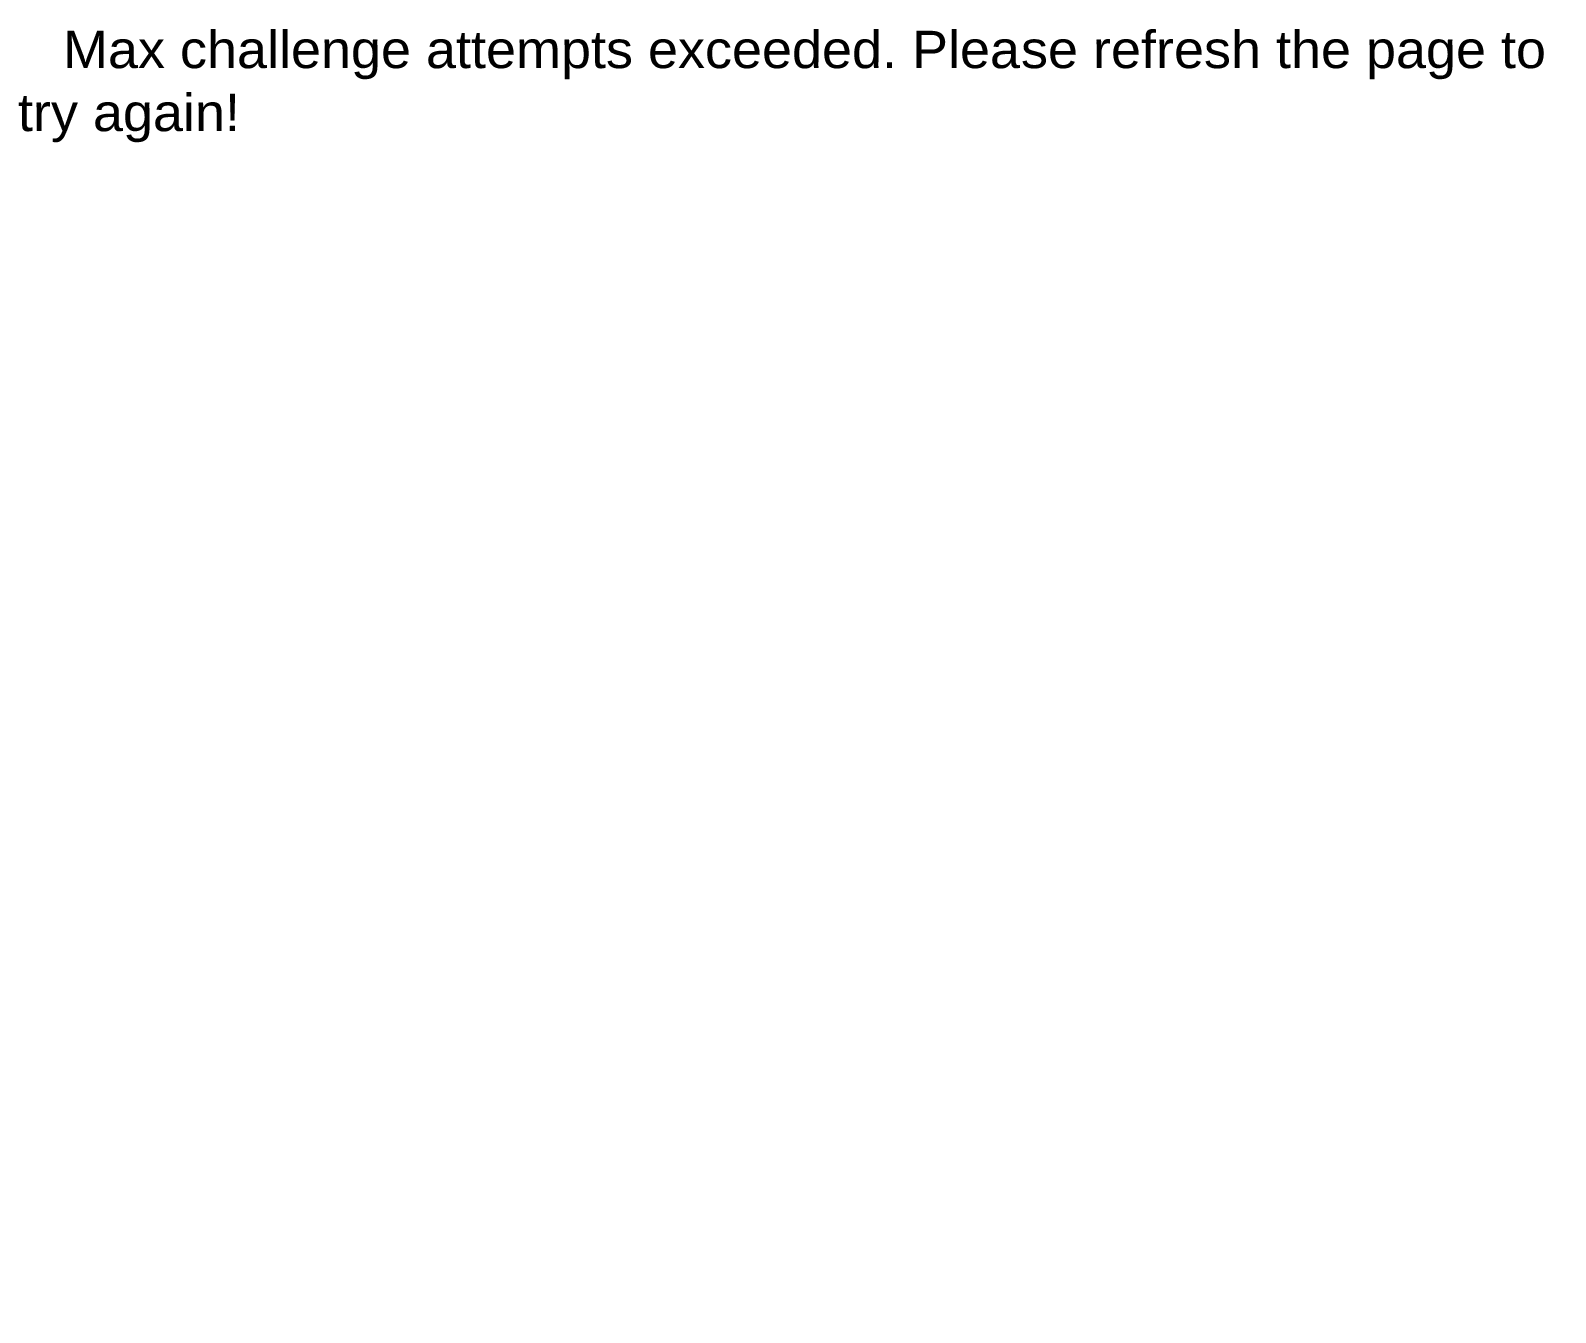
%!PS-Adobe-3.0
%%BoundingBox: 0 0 1586 1343
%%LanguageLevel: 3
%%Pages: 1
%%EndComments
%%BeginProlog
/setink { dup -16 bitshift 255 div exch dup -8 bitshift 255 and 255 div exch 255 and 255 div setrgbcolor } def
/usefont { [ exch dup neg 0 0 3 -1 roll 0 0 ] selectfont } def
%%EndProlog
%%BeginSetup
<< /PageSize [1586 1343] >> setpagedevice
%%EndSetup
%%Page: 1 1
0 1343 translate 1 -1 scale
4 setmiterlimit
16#FFFFFF setink
0 0 1586 1343 rectfill
/LiberationSans-Regular 54 usefont
16#000000 setink
63 68 moveto (Max challenge attempts exceeded. Please refresh the page to) show
18 131 moveto (try again!) show
showpage
%%EOF
